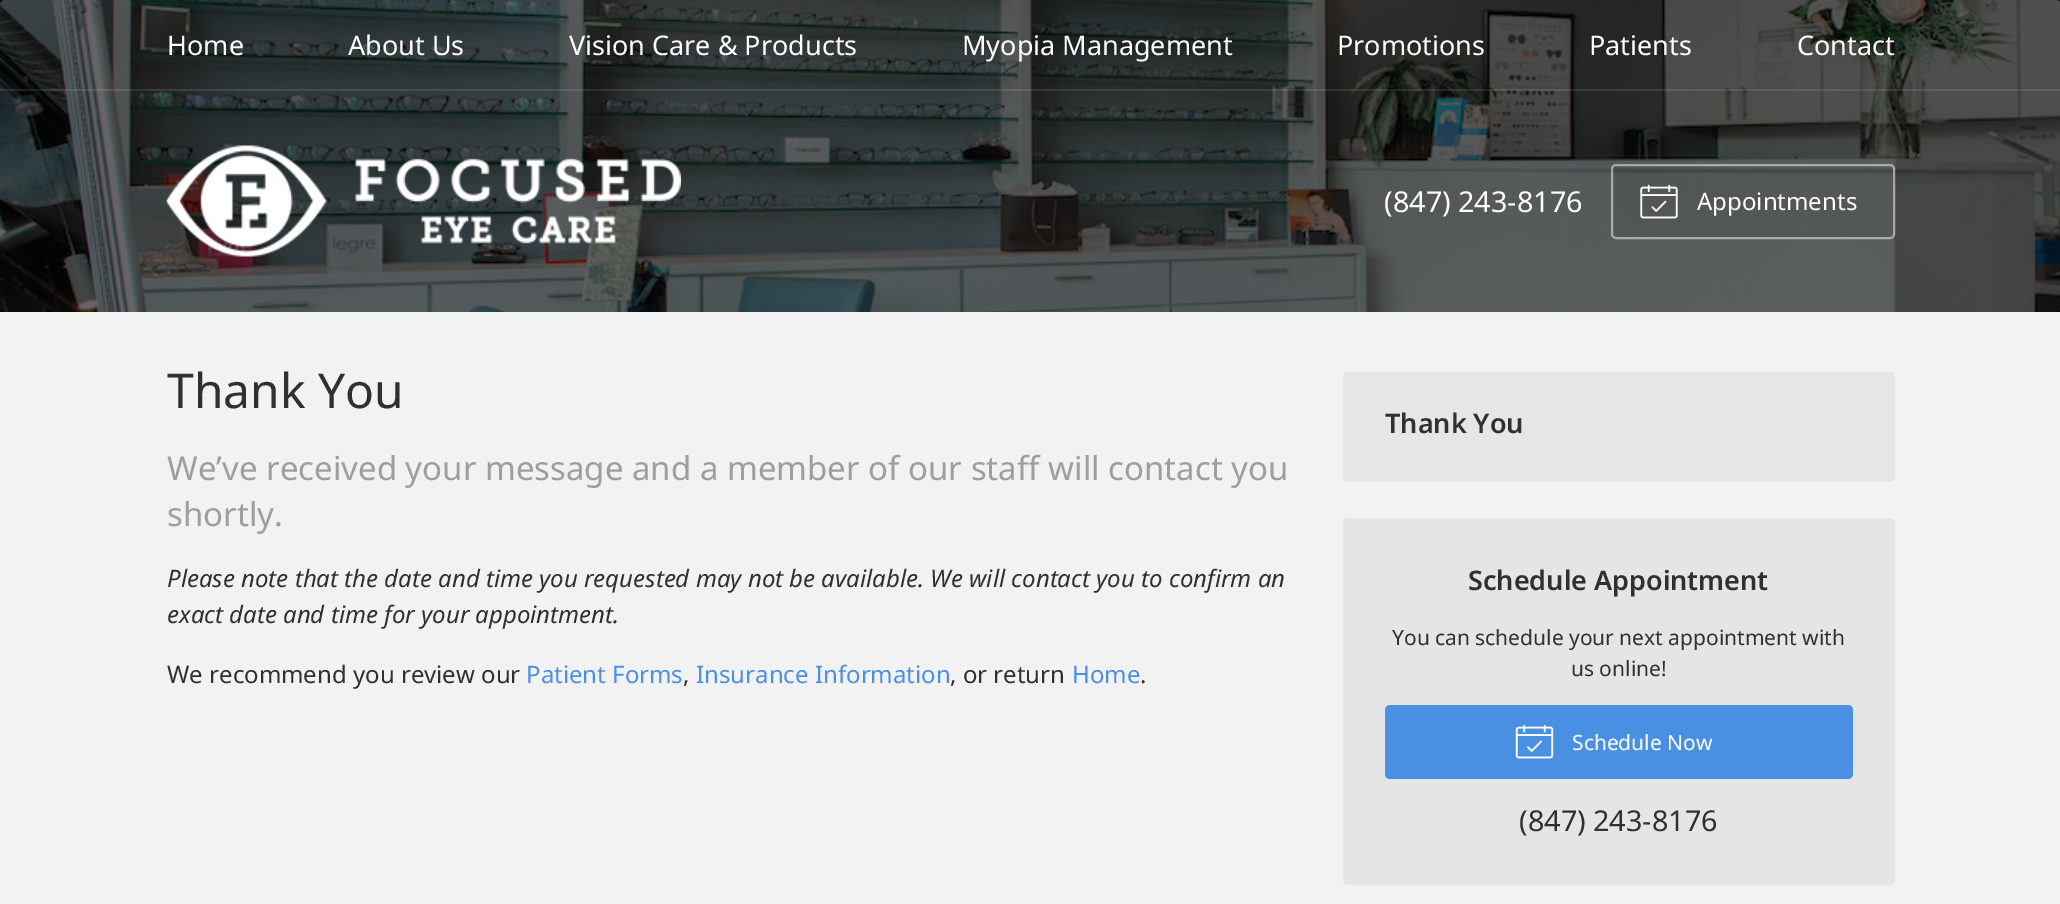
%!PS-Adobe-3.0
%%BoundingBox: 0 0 2060 904
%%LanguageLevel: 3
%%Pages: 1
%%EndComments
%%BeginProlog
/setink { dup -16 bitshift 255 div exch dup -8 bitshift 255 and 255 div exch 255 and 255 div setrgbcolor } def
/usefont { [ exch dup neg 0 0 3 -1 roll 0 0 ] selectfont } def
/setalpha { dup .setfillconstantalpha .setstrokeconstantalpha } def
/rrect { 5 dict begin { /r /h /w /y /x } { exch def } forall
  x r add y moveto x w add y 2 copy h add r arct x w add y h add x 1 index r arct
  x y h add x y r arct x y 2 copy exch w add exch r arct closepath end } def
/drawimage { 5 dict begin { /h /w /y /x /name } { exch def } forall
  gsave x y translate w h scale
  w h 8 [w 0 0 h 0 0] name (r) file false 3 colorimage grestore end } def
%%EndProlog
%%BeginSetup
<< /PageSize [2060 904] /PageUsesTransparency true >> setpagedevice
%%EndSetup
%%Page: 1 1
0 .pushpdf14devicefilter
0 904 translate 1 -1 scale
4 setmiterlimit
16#F2F2F2 setink
0 0 2060 904 rectfill
16#000000 setink
0 0 2060 312 rectfill
(img1.raw) 0 0 2060 312 drawimage
0.1 setalpha
16#FFFFFF setink
0 89 2060 2 rectfill
/NotoSans-Regular 27 usefont
1 setalpha
[
    [(Home) 167 55]
    [(About Us) 348 55]
    [(Vision Care & Products) 569 55]
    [(Myopia Management) 962 55]
    [(Promotions) 1337 55]
    [(Patients) 1589 55]
    [(Contact) 1797 55]
] { aload pop moveto show } forall
(img2.raw) 166 145 515 112 drawimage
/NotoSans-Regular 28.75 usefont
1384 212 moveto (\(847\) 243-8176) show
0.05 setalpha
16#000000 setink
1611 164 284 75 rectfill
0.5 setalpha
16#FFFFFF setink
2 setlinewidth
1612 165 282 73 4 rrect stroke
1 setalpha
(img3.raw) 1640 184 38 35 drawimage
/NotoSans-Regular 24 usefont
1697 210 moveto (Appointments) show
/NotoSans-Regular 48 usefont
16#303030 setink
167 408 moveto (Thank You) show
/NotoSans-Regular 33 usefont
16#9E9E9E setink
167 480 moveto (We’ve received your message and a member of our staff will contact you) show
167 526 moveto (shortly.) show
/NotoSans-Italic 24 usefont
16#303030 setink
167 587 moveto (Please note that the date and time you requested may not be available. We will contact you to confirm an) show
167 623 moveto (exact date and time for your appointment.) show
/NotoSans-Regular 24 usefont
167 683 moveto (We recommend you review our) show
16#4A90E2 setink
526 683 moveto (Patient Forms) show
16#303030 setink
683 683 moveto (,) show
16#4A90E2 setink
696 683 moveto (Insurance Information) show
16#303030 setink
950 683 moveto (, or return) show
16#4A90E2 setink
1072 683 moveto (Home) show
16#303030 setink
1140 683 moveto (.) show
16#E6E6E6 setink
1343 372 552 110 5 rrect fill
/NotoSans-SemiBold 27 usefont
16#303030 setink
1385 433 moveto (Thank You) show
16#E5E5E5 setink
1343 518 552 367 5 rrect fill
16#303030 setink
1468 590 moveto (Schedule Appointment) show
/NotoSans-Regular 21 usefont
1392 645 moveto (You can schedule your next appointment with) show
1571 676 moveto (us online!) show
16#4A90E2 setink
1385 705 468 74 5 rrect fill
(img4.raw) 1515 724 39 35 drawimage
16#FFFFFF setink
1572 750 moveto (Schedule Now) show
/NotoSans-Regular 28.75 usefont
16#303030 setink
1519 831 moveto (\(847\) 243-8176) show
.poppdf14devicefilter showpage
%%EOF
